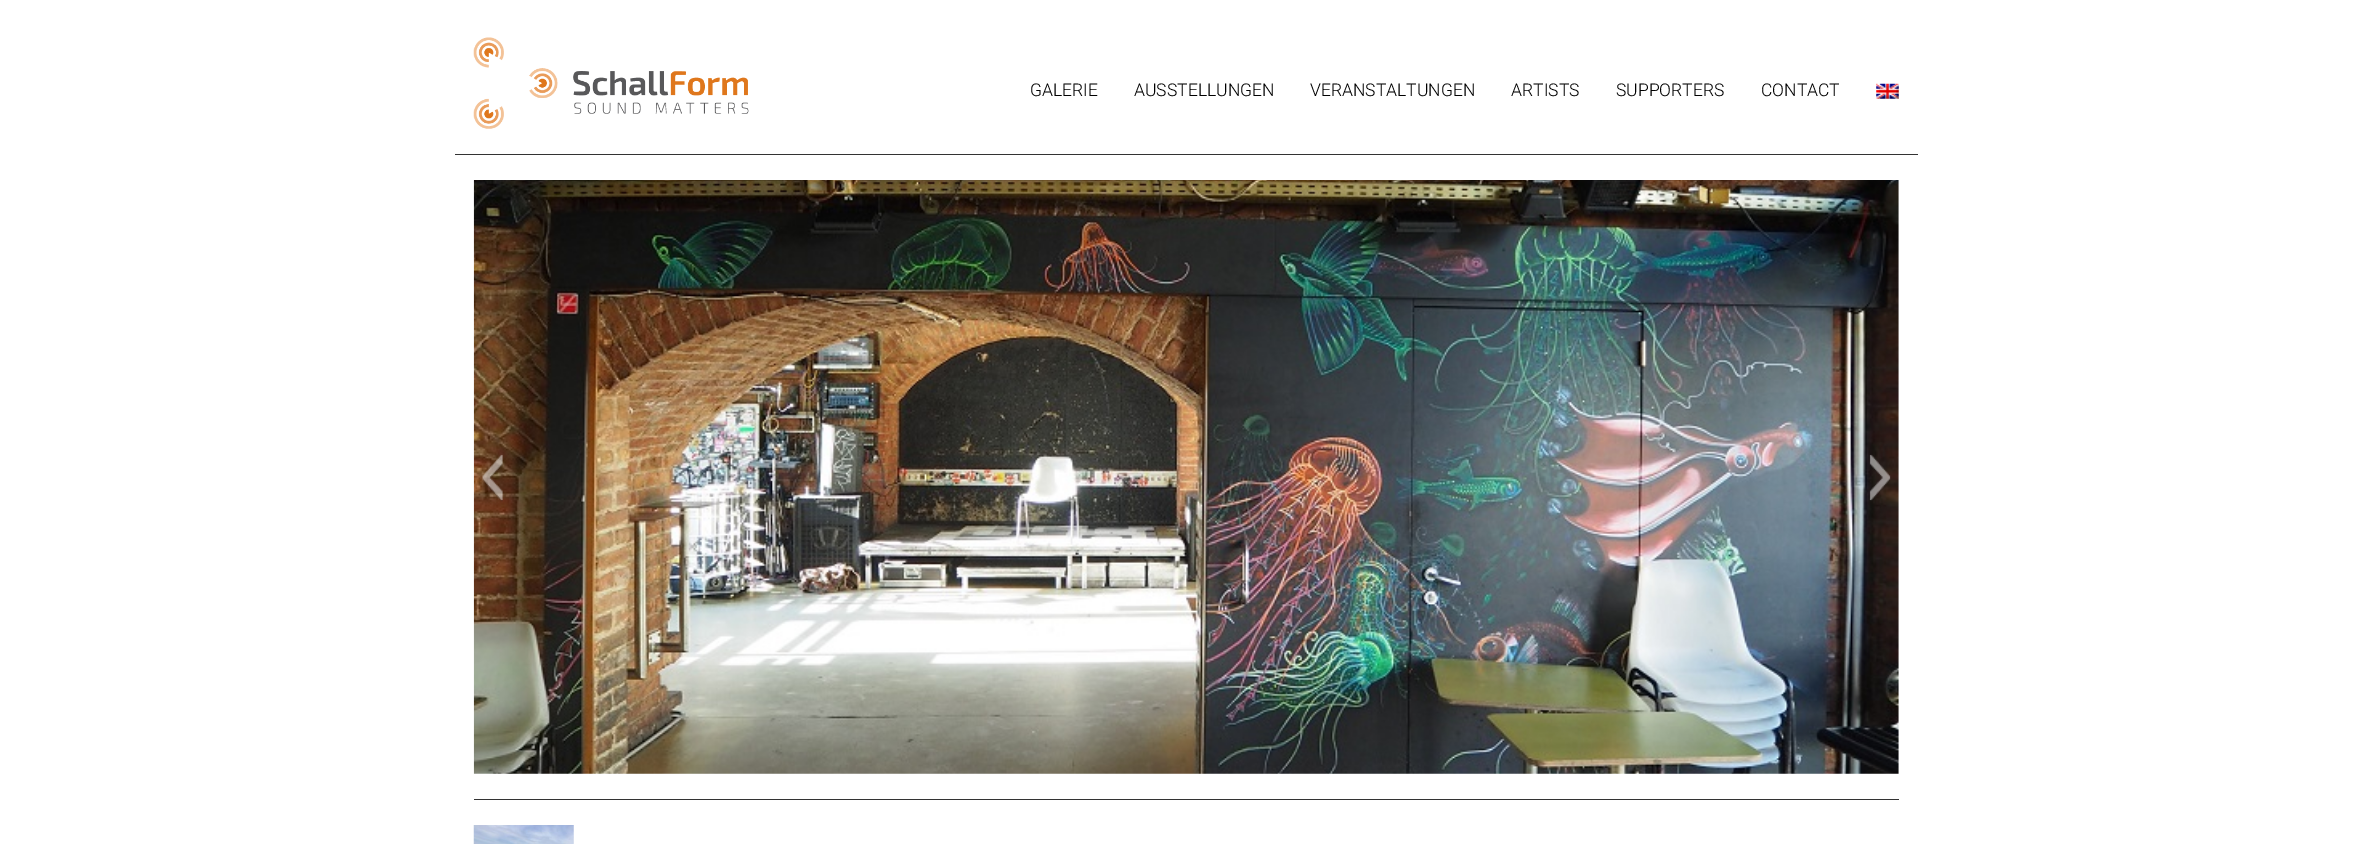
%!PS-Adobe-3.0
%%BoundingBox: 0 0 2371 844
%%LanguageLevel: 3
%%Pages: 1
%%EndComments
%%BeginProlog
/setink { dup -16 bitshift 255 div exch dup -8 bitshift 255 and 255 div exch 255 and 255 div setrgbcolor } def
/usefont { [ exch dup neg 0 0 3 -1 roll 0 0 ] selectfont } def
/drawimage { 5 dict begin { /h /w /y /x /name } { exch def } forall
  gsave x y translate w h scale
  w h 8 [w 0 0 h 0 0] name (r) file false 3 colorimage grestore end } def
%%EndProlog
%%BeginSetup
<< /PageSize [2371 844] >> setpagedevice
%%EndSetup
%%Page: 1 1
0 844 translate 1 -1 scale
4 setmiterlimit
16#FFFFFF setink
0 0 2371 844 rectfill
16#333333 setink
455 154 1463 1 rectfill
(img1.raw) 473 37 276 92 drawimage
/Roboto-Light 17.5 usefont
16#000000 setink
[
    [(GALERIE) 1030 96]
    [(AUSSTELLUNGEN) 1134 96]
    [(VERANSTALTUNGEN) 1310 96]
    [(ARTISTS) 1511 96]
    [(SUPPORTERS) 1616 96]
    [(CONTACT) 1761 96]
] { aload pop moveto show } forall
(img2.raw) 1876 83 23 16 drawimage
(img3.raw) 473 180 1426 594 drawimage
(img4.raw) 482 454 21 48 drawimage
(img5.raw) 1869 454 22 47 drawimage
16#333333 setink
474 799 1425 1 rectfill
(img6.raw) 473 825 101 19 drawimage
showpage
%%EOF
